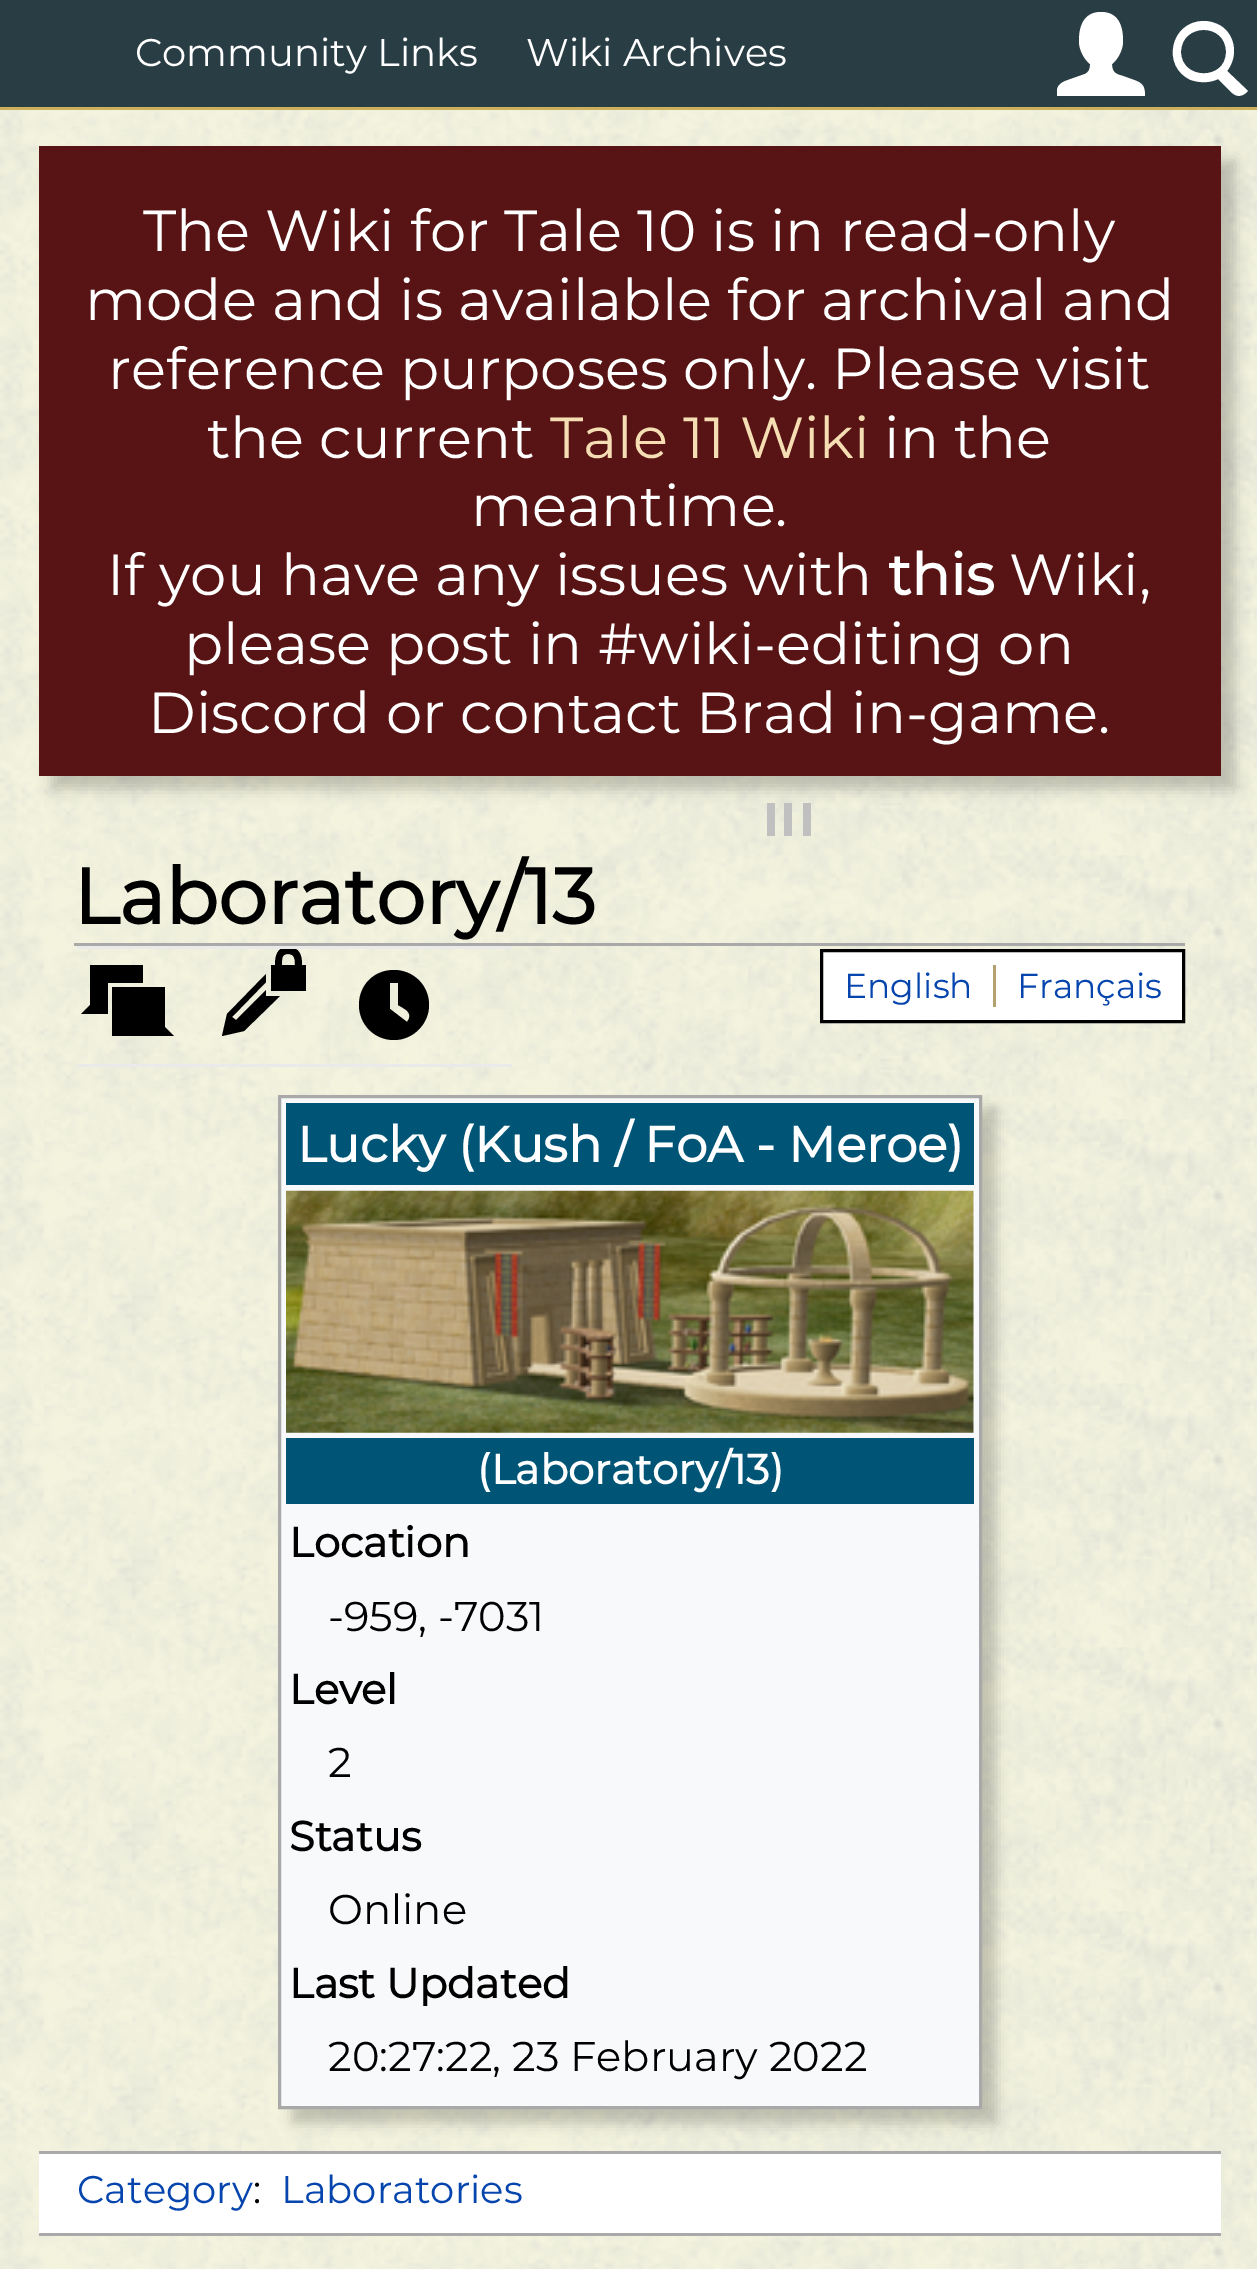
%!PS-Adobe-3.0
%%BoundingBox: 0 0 1257 2269
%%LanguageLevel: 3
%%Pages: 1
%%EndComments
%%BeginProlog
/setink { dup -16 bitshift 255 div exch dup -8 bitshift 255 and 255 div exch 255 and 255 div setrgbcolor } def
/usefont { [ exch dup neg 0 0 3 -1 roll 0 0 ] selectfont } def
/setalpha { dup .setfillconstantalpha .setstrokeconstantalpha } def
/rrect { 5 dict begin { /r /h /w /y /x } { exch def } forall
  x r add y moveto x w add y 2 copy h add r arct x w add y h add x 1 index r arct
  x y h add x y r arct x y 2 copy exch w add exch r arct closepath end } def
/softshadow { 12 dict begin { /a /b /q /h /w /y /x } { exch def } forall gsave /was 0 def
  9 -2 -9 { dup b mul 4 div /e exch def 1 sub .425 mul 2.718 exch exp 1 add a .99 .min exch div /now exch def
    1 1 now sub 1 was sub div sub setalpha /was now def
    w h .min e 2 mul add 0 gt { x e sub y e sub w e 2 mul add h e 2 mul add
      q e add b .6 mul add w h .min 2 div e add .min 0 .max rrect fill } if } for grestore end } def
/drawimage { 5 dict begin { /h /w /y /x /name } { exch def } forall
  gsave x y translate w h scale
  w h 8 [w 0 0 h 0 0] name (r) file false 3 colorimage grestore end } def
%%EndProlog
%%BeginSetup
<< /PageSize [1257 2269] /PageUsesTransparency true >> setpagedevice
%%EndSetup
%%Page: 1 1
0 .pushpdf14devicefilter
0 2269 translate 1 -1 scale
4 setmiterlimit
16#F5F5DC setink
0 0 1257 2269 rectfill
16#293D44 setink
0 0 1257 107 rectfill
16#CEAF5B setink
0 107 1257 3 rectfill
/Montserrat-Thin 38.5 usefont
16#FFFFFF setink
135 66 moveto (Community Links) show
526 66 moveto (Wiki Archives) show
1134 80 moveto 1143 83 1145 87 1145 96 curveto 1057 96 lineto 1057 91 lineto 1057 85 1062 82 1068 80 curveto 1085 74 lineto 1089 72 1090 69 1090 65 curveto 1090 64 lineto 1084 59 1079 50 1079 41 curveto 1079 17 1091 12 1101 12 curveto 1114 12 1123 20 1123 41 curveto 1123 50 1118 59 1112 64 curveto 1112 73 1116 74 1123 76 curveto closepath fill
1227 71 moveto 1248 91 lineto 1241 98 1236 97 1230 91 curveto 1218 79 lineto 1210 83 1200 83 1191 80 curveto 1161 67 1170 21 1204 21 curveto 1210 21 1216 23 1221 26 curveto 1236 36 1238 57 1227 71 curveto closepath 1181 52 moveto 1181 80 1226 81 1226 52 curveto 1226 22 1181 23 1181 52 curveto closepath fill
(img1.raw) 0 110 1257 2159 drawimage
16#000000 setink
52 160 1183 629 0 7 0.2 softshadow
16#581414 setink
39 146 1182 630 rectfill
/Montserrat-Thin 57.75 usefont
16#FFFFFF setink
[
    [(The Wiki for Tale 10 is in read-only) 143 251]
    [(mode and is available for archival and) 85 320]
    [(reference purposes only. Please visit) 108 389]
    [(the current) 207 458]
] { aload pop moveto show } forall
16#F5DEB3 setink
550 458 moveto (Tale 11 Wiki) show
16#FFFFFF setink
[
    [(in the) 884 458]
    [(meantime.) 471 526]
    [(If you have any issues with) 107 595]
] { aload pop moveto show } forall
/Montserrat-Bold 57.75 usefont
888 595 moveto (this) show
/Montserrat-Thin 57.75 usefont
[
    [(Wiki,) 1009 595]
    [(please post in #wiki-editing on) 184 664]
    [(Discord or contact Brad in-game.) 148 733]
] { aload pop moveto show } forall
[
    [784 803 8 33 16#C0C0C0]
    [767 803 8 33 16#C0C0C0]
    [803 803 8 33 16#C0C0C0]
    [74 943 1111 3 16#A9A9A9]
] { aload pop setink rectfill } forall
/Montserrat-Bold 78 usefont
16#000000 setink
73 924 moveto (Laboratory/13) show
16#FFFFFF setink
821.5 950.5 moveto 1183.5 950.5 lineto 1183.5 1021.5 lineto 821.5 1021.5 lineto closepath gsave fill grestore
16#000000 setink
3 setlinewidth
stroke
16#B3A270 setink
993 965 3 42 rectfill
/Montserrat-Thin 34.5 usefont
16#0645AD setink
844 998 moveto (English) show
1017 998 moveto (Français) show
16#EAEAEA setink
77 946 435 3 rectfill
77 1064 435 3 rectfill
16#000000 setink
165 987 moveto 112 987 lineto 112 1036 lineto 174 1036 lineto 165 1027 lineto closepath 90 965 moveto 90 1005 lineto 81 1014 lineto 108 1014 lineto 108 983 lineto 143 983 lineto 143 965 lineto closepath fill
gsave
77 949 396 115 rectclip
302 965 moveto 306 965 lineto 306 991 lineto 271 991 lineto 271 965 lineto 275 965 lineto 275 956 277 947 288 947 curveto 300 947 302 956 302 965 curveto closepath 295 965 moveto 295 960 295 954 288 954 curveto 281 954 282 960 282 965 curveto closepath 266 990 moveto 266 996 lineto 280 996 lineto 244 1031 lineto 222 1036 lineto 227 1014 lineto 266 974 lineto 266 982 lineto 232 1017 lineto 236 1020 lineto closepath fill
grestore
394 970 moveto 413 970 429 985 429 1005 curveto 429 1024 413 1040 394 1040 curveto 374 1040 359 1024 359 1005 curveto 359 985 374 970 394 970 curveto closepath 407 1022 moveto 414 1013 405 1009 398 1005 curveto 398 983 lineto 390 983 lineto 390 1009 lineto closepath fill
292 1108 704 1015 0 6.5 0.2 softshadow
16#F8F9FA setink
279.5 1096.5 moveto 980.5 1096.5 lineto 980.5 2107.5 lineto 279.5 2107.5 lineto closepath gsave fill grestore
16#A9A9A9 setink
stroke
16#005577 setink
286 1103 688 82 rectfill
/Montserrat-Bold 49.9 usefont
16#FFFFFF setink
297 1162 moveto (Lucky \(Kush / FoA - Meroe\)) show
(img2.raw) 286 1190 688 243 drawimage
16#005577 setink
286 1438 688 66 rectfill
/Montserrat-Bold 41.6 usefont
16#FFFFFF setink
477 1484 moveto (\(Laboratory/13\)) show
16#000000 setink
289 1557 moveto (Location) show
/Montserrat-Thin 41.6 usefont
328 1631 moveto (-959, -7031) show
/Montserrat-Bold 41.6 usefont
289 1704 moveto (Level) show
/Montserrat-Thin 41.6 usefont
328 1777 moveto (2) show
/Montserrat-Bold 41.6 usefont
289 1851 moveto (Status) show
/Montserrat-Thin 41.6 usefont
328 1924 moveto (Online) show
/Montserrat-Bold 41.6 usefont
289 1998 moveto (Last Updated) show
/Montserrat-Thin 41.6 usefont
328 2071 moveto (20:27:22, 23 February 2022) show
[
    [39 2154 1182 79 16#FFFFFF]
    [39 2151 1182 3 16#A9A9A9]
    [39 2233 1182 3 16#A9A9A9]
] { aload pop setink rectfill } forall
/Montserrat-Thin 38.5 usefont
16#0645AD setink
77 2203 moveto (Category) show
16#000000 setink
253 2203 moveto (:) show
16#0645AD setink
281 2203 moveto (Laboratories) show
.poppdf14devicefilter showpage
%%EOF
